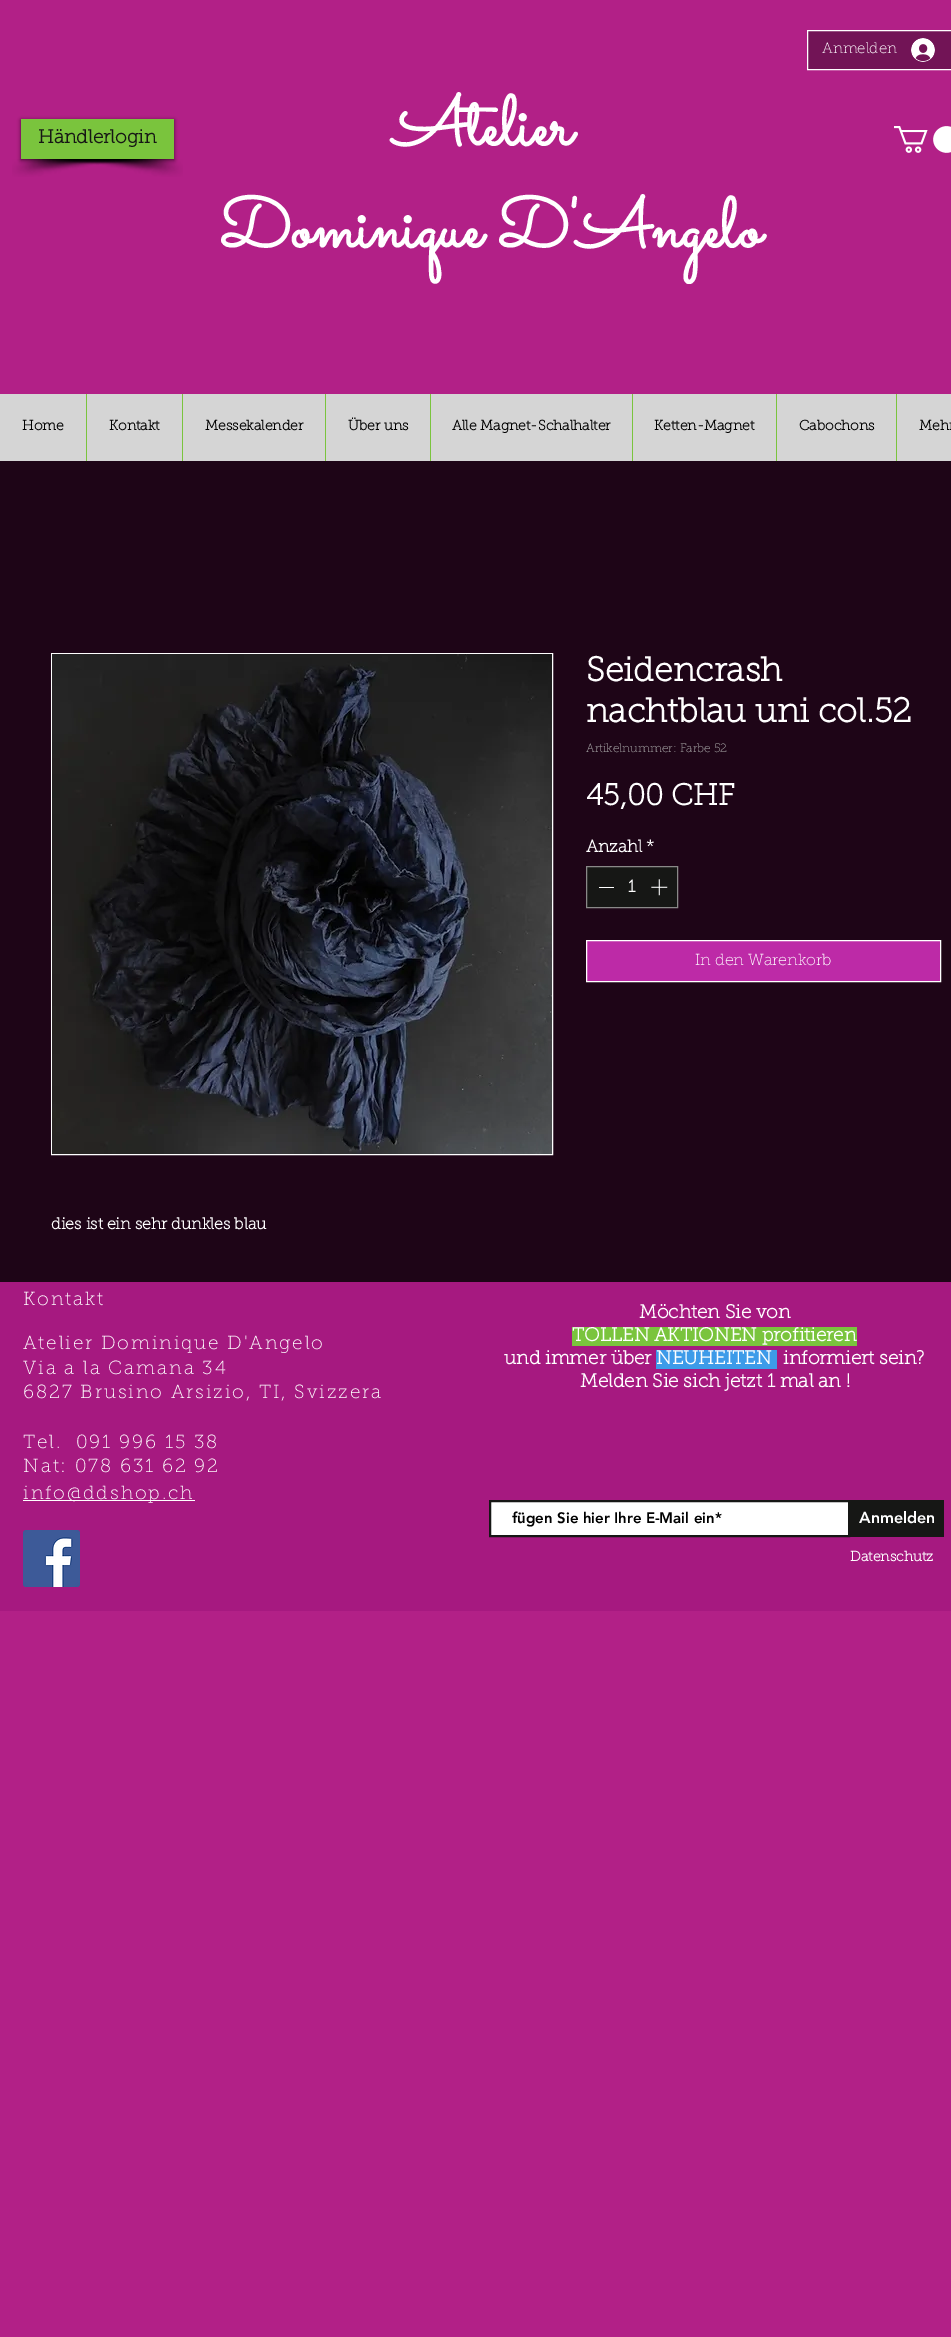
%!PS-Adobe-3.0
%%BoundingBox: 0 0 951 2337
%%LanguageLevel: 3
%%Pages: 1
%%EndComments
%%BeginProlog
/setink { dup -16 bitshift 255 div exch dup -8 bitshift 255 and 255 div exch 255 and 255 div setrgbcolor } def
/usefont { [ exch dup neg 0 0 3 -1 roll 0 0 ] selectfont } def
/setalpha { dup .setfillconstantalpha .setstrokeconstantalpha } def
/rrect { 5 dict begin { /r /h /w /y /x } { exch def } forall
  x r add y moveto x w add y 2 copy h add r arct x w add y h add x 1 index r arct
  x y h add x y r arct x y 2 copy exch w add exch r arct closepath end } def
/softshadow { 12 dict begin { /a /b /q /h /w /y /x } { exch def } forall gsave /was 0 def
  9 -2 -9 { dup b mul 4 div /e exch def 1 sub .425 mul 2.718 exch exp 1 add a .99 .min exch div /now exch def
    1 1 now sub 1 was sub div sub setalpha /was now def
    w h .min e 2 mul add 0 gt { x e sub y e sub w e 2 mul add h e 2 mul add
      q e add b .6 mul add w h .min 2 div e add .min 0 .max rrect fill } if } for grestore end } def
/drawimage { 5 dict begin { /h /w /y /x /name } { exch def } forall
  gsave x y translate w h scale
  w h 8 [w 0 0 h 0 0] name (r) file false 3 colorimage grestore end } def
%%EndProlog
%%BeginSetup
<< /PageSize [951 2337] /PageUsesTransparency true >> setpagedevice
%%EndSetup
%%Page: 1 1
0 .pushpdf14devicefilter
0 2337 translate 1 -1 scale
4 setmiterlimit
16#B22087 setink
0 0 951 2337 rectfill
16#721456 setink
807.5 30.5 moveto 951.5 30.5 lineto 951.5 69.5 lineto 807.5 69.5 lineto closepath gsave fill grestore
16#FFFFFF setink
stroke
/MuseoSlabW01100-Thin 15 usefont
822 53 moveto (Anmelden) show
(img1.raw) 911 38 24 24 drawimage
(img2.raw) 12 159 154 18 drawimage
(img3.raw) 42 159 141 18 drawimage
16#000000 setink
21 120 153 40 0 2 0.6 softshadow
16#7AC43D setink
21 119 153 40 rectfill
/MuseoSlabW01100-Bold 19 usefont
16#161715 setink
38 143 moveto (Händlerlogin) show
/Sacramento-Bold 70 usefont
16#FFFFFF setink
393 145 moveto (Atelier) show
219 247 moveto (Dominique D'Angelo) show
(img4.raw) 894 126 57 27 drawimage
16#D5D5D5 setink
0 394 951 67 rectfill
/MuseoSlabW01100-Bold 14 usefont
16#000000 setink
22 430 moveto (Home) show
16#7AC43D setink
86 394 1 67 rectfill
16#000000 setink
109 430 moveto (Kontakt) show
16#7AC43D setink
182 394 1 67 rectfill
16#000000 setink
205 430 moveto (Messekalender) show
16#7AC43D setink
325 394 1 67 rectfill
16#000000 setink
348 430 moveto (Über uns) show
16#7AC43D setink
430 394 1 67 rectfill
16#000000 setink
452 430 moveto (Alle Magnet-Schalhalter) show
16#7AC43D setink
632 394 1 67 rectfill
16#000000 setink
654 430 moveto (Ketten-Magnet) show
16#7AC43D setink
776 394 1 67 rectfill
16#000000 setink
799 430 moveto (Cabochons) show
16#7AC43D setink
896 394 1 67 rectfill
16#000000 setink
919 430 moveto (Mehr) show
16#1E0517 setink
0 461 951 821 rectfill
/MuseoSlabW01100-Bold 34 usefont
16#FFFFFF setink
586 681 moveto (Seidencrash) show
586 722 moveto (nachtblau uni col.52) show
/MuseoSlabW01100-Thin 12 usefont
16#AAAAAA setink
586 752 moveto (Artikelnummer: Farbe 52) show
/MuseoSlabW01100-Bold 30 usefont
16#FFFFFF setink
586 805 moveto (45,00 CHF) show
/MuseoSlabW01100-Bold 17 usefont
586 852 moveto (Anzahl *) show
16#161715 setink
586.5 866.5 moveto 677.5 866.5 lineto 677.5 907.5 lineto 586.5 907.5 lineto closepath gsave fill grestore
16#898988 setink
stroke
16#FFFFFF setink
599 887 15 1 rectfill
628 892 moveto (1) show
(img5.raw) 651 879 17 17 drawimage
16#BD2AA7 setink
586.5 940.5 moveto 940.5 940.5 lineto 940.5 981.5 lineto 586.5 981.5 lineto closepath gsave fill grestore
16#FFFFFF setink
stroke
/MuseoSlabW01100-Thin 16 usefont
695 965 moveto (In den Warenkorb) show
51.5 653.5 501 501 rectstroke
(img6.raw) 52 654 500 500 drawimage
/MuseoSlabW01100-Bold 16 usefont
51 1229 moveto (dies ist ein sehr dunkles blau) show
16#A61980 setink
0 1282 951 329 rectfill
/MuseoSlabW01100-Thin 19 usefont
16#FFFFFF setink
23 1305 moveto 1.9 0 (Kontakt) ashow
23 1349 moveto 1.9 0 (Atelier Dominique D'Angelo) ashow
23 1374 moveto 1.9 0 (Via a la Camana 34) ashow
23 1398 moveto 1.9 0 (6827 Brusino Arsizio, TI, Svizzera) ashow
23 1448 moveto 1.9 0 (Tel.  091 996 15 38) ashow
23 1472 moveto 1.9 0 (Nat: 078 631 62 92) ashow
23 1500 172 1 rectfill
23 1499 moveto 1.9 0 (info@ddshop.ch) ashow
/MuseoSlabW01100-Bold 19 usefont
639 1318 moveto (Möchten Sie von) show
16#7AC43D setink
572 1327 285 19 rectfill
16#FFFFFF setink
572 1341 moveto (TOLLEN AKTIONEN profitieren) show
504 1364 moveto (und immer über) show
16#3D9BE9 setink
656 1350 121 19 rectfill
16#FFFFFF setink
[
    [(NEUHEITEN) 656 1364]
    [(informiert sein?) 783 1364]
    [(Melden Sie sich jetzt 1 mal an !) 580 1387]
] { aload pop moveto show } forall
490 1501 moveto 849 1501 lineto 849 1536 lineto 490 1536 lineto closepath gsave fill grestore
16#161715 setink
2 setlinewidth
stroke
/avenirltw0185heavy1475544-Black 15 usefont
16#000000 setink
512 1523 moveto (fügen Sie hier Ihre E-Mail ein*) show
16#161715 setink
850 1500 94 37 rectfill
/avenirltw0185heavy1475544-Black 16 usefont
16#FFFFFF setink
859 1523 moveto (Anmelden) show
(img7.raw) 23 1530 57 57 drawimage
/MuseoSlabW01100-Bold 14 usefont
850 1561 moveto (Datenschutz) show
.poppdf14devicefilter showpage
%%EOF
